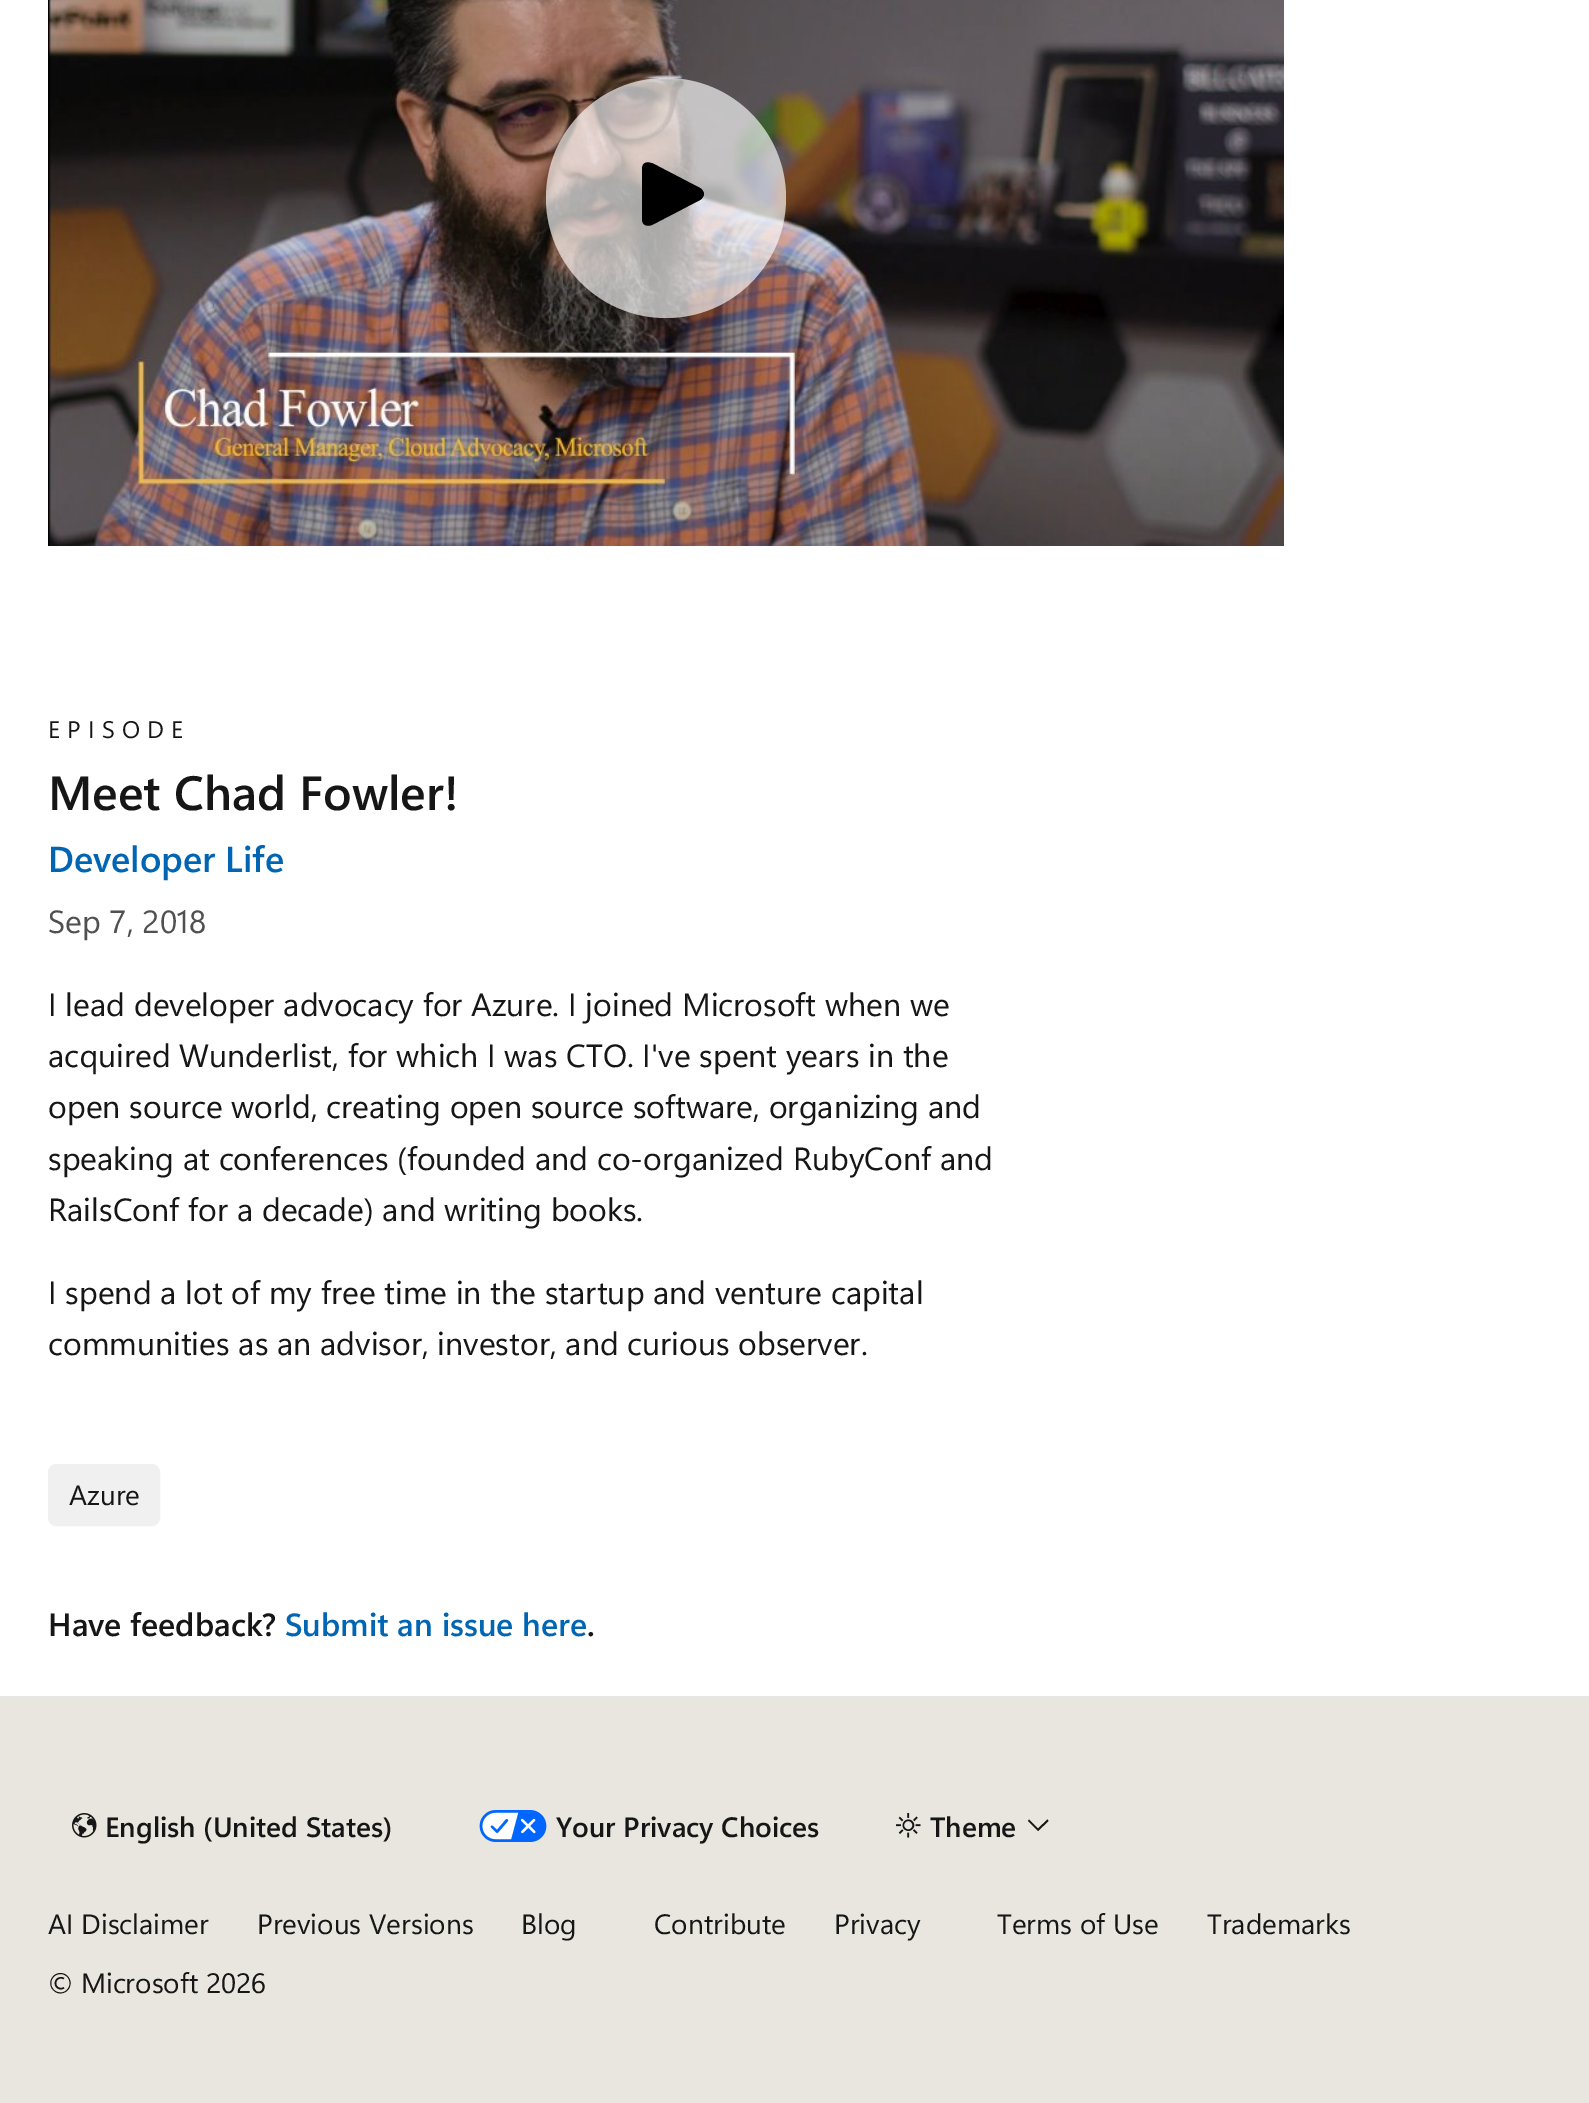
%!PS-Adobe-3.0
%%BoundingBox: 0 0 1589 2103
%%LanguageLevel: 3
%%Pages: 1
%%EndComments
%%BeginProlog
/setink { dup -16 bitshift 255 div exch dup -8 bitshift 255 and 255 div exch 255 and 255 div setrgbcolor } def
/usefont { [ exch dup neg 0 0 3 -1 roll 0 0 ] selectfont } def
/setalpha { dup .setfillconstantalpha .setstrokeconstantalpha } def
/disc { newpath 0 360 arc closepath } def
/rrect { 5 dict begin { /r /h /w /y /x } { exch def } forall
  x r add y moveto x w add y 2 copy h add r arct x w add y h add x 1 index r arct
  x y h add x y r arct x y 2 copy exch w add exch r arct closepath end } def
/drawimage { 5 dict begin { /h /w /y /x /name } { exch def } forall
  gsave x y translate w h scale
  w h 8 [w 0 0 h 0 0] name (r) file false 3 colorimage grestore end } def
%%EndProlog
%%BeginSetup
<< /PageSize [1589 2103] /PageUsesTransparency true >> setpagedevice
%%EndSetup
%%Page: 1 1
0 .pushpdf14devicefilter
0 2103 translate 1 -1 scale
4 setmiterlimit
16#FFFFFF setink
0 0 1589 2103 rectfill
(img1.raw) 48 0 1236 546 drawimage
0.65 setalpha
666 198 120 disc fill
1 setalpha
16#000000 setink
652 163 moveto 700 188 lineto 702 189 704 192 704 194 curveto 704 196 702 199 700 200 curveto 652 225 lineto 649 226 647 226 645 225 curveto 643 224 642 222 642 219 curveto 642 169 lineto 642 166 643 164 645 163 curveto 647 162 649 162 651 163 curveto closepath fill
/SegoeUI-Regular 24 usefont
16#161616 setink
48 738 moveto 7.25 0 (EPISODE) ashow
/SegoeUI-SemiBold 48 usefont
48 810 moveto (Meet Chad Fowler!) show
/SegoeUI-SemiBold 36 usefont
16#0065B3 setink
48 872 moveto (Developer Life) show
/SegoeUI-Regular 32 usefont
16#505050 setink
48 933 moveto (Sep 7, 2018) show
16#161616 setink
[
    [(I lead developer advocacy for Azure. I joined Microsoft when we) 48 1016]
    [(acquired Wunderlist, for which I was CTO. I've spent years in the) 48 1067]
    [(open source world, creating open source software, organizing and) 48 1118]
    [(speaking at conferences \(founded and co-organized RubyConf and) 48 1170]
    [(RailsConf for a decade\) and writing books.) 48 1221]
    [(I spend a lot of my free time in the startup and venture capital) 48 1304]
    [(communities as an advisor, investor, and curious observer.) 48 1355]
] { aload pop moveto show } forall
16#F0F0F0 setink
49 1465 110 60 7 rrect gsave fill grestore
2 setlinewidth
stroke
/SegoeUI-Regular 28 usefont
16#161616 setink
69 1505 moveto (Azure) show
/SegoeUI-SemiBold 32 usefont
48 1636 moveto (Have feedback?) show
16#0065B3 setink
285 1636 moveto (Submit an issue here) show
16#161616 setink
587 1636 moveto (.) show
16#E8E6DF setink
0 1698 1589 405 rectfill
16#E6E6E6 setink
0 1696 1589 2 rectfill
(img2.raw) 72 1813 25 25 drawimage
/SegoeUI-SemiBold 28 usefont
16#161616 setink
105 1837 moveto (English \(United States\)) show
(img3.raw) 479 1810 68 32 drawimage
556 1837 moveto (Your Privacy Choices) show
(img4.raw) 896 1813 25 25 drawimage
930 1837 moveto (Theme) show
1038 1831 moveto 1028 1821 lineto 1029 1819.5 lineto 1038 1828.5 lineto 1047.5 1819.5 lineto 1048.5 1821 lineto closepath fill
/SegoeUI-Regular 28 usefont
[
    [(AI Disclaimer) 48 1934]
    [(Previous Versions) 257 1934]
    [(Blog) 521 1934]
    [(Contribute) 654 1934]
    [(Privacy) 834 1934]
    [(Terms of Use) 997 1934]
    [(Trademarks) 1207 1934]
    [(© Microsoft 2026) 48 1993]
] { aload pop moveto show } forall
.poppdf14devicefilter showpage
%%EOF
